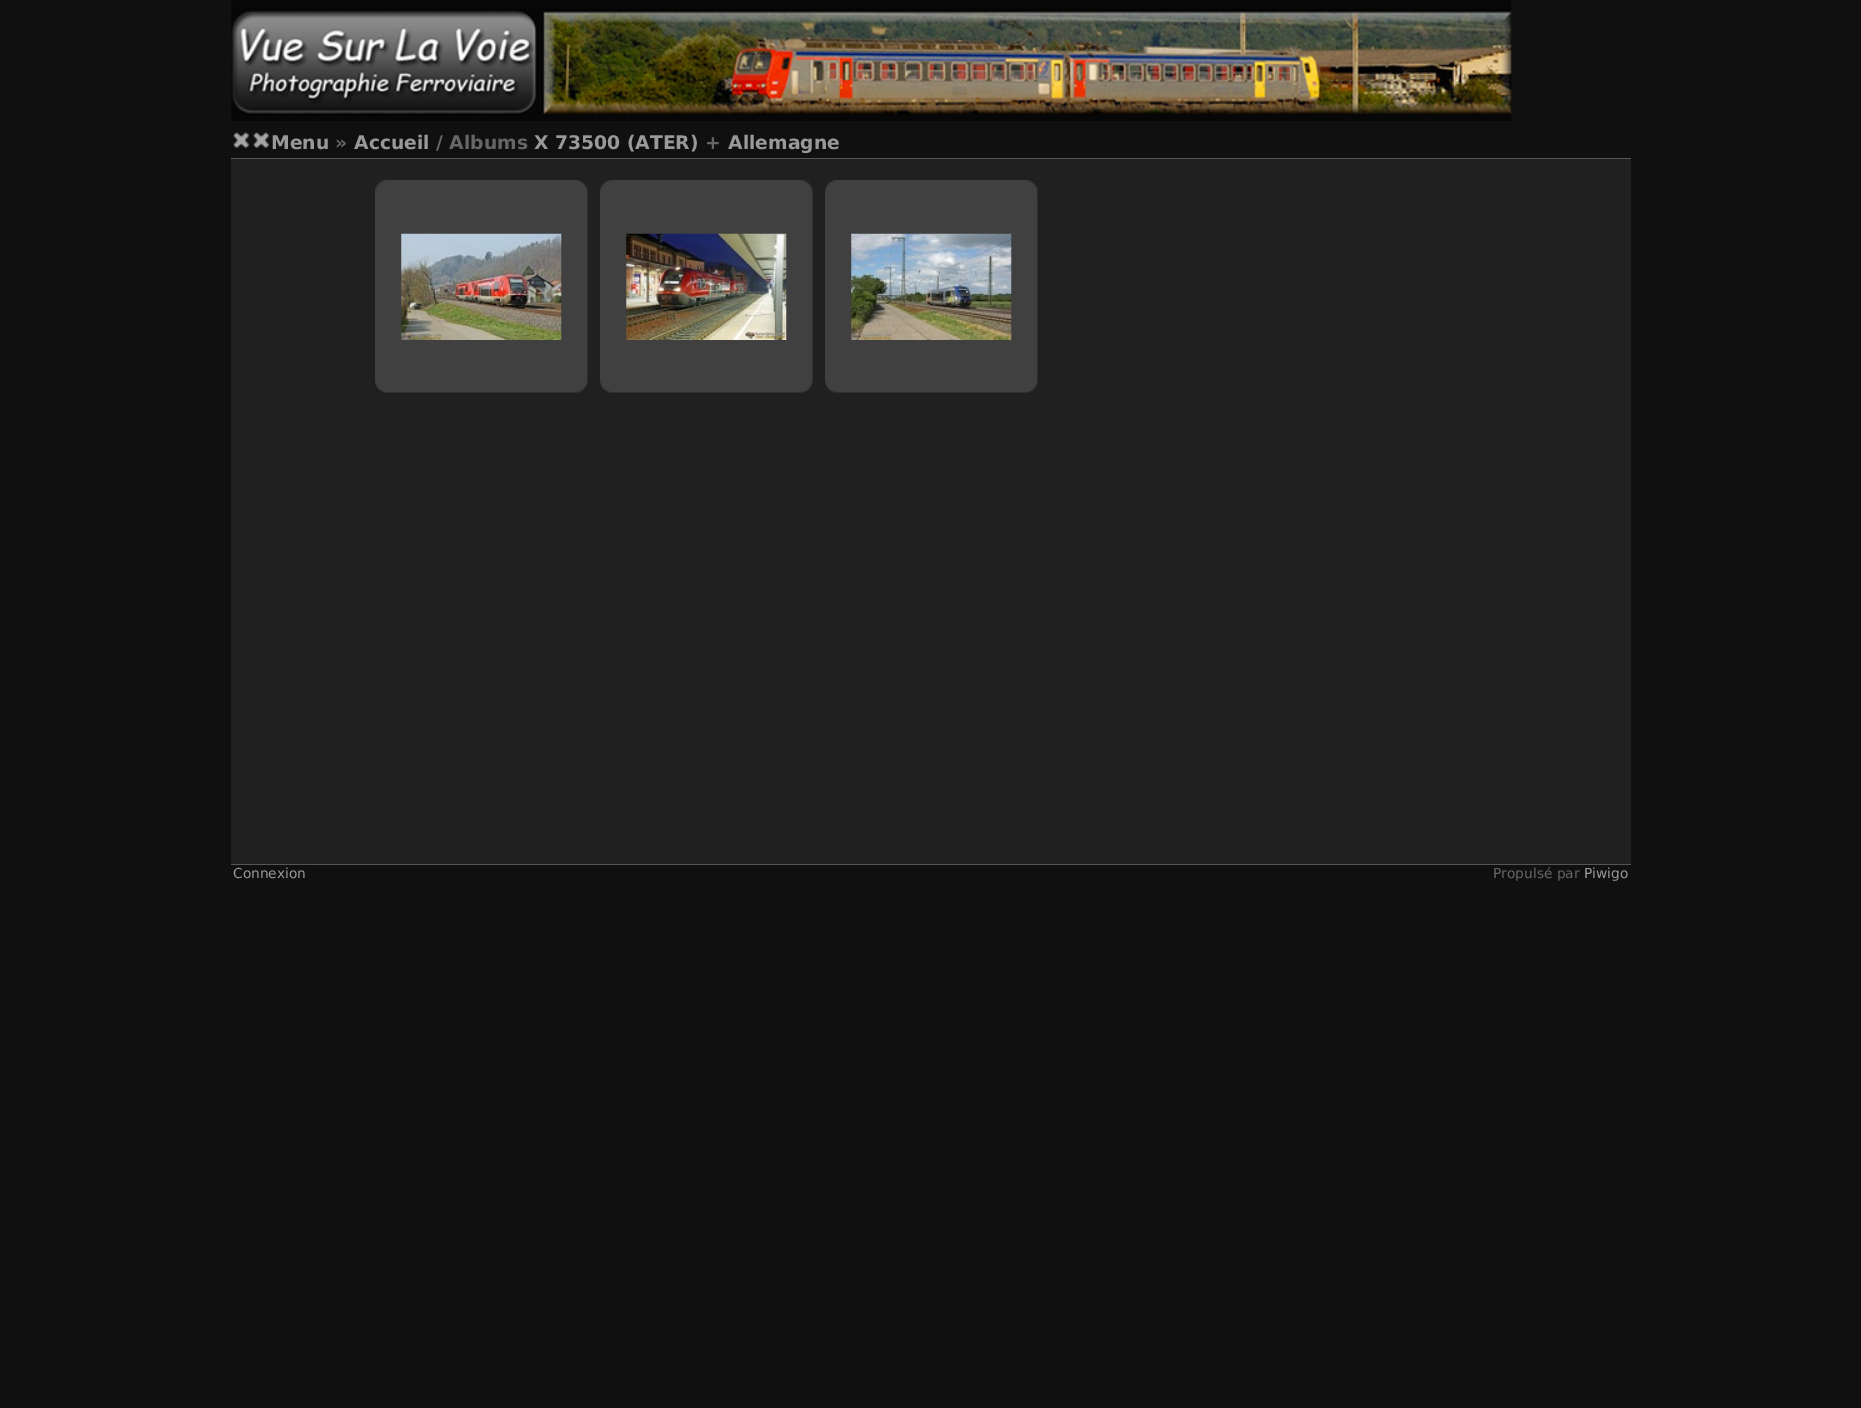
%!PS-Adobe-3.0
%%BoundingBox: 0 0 1861 1408
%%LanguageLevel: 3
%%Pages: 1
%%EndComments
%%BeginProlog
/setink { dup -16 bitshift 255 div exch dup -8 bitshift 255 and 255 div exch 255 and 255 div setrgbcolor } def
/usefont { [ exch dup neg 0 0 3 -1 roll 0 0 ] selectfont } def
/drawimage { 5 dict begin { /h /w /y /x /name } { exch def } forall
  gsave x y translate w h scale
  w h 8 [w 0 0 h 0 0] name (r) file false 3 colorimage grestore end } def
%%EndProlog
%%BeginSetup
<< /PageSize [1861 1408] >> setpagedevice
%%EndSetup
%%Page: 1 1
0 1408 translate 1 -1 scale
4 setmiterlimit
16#101010 setink
0 0 1861 1408 rectfill
(img1.raw) 231 0 1281 121 drawimage
/DejaVuSans-Bold 18.75 usefont
16#999999 setink
271 149 moveto (Menu) show
16#666666 setink
335 149 moveto (») show
(img2.raw) 233 132 16 17 drawimage
(img2.raw) 253 132 16 17 drawimage
16#999999 setink
354 149 moveto (Accueil) show
16#666666 setink
436 149 moveto (/ Albums) show
16#999999 setink
534 149 moveto (X 73500 \(ATER\)) show
16#666666 setink
705 149 moveto (+) show
16#999999 setink
728 149 moveto (Allemagne) show
[
    [231 159 1400 705 16#202020]
    [231 158 1400 1 16#555555]
    [231 864 1400 1 16#555555]
] { aload pop setink rectfill } forall
(img3.raw) 375 180 213 213 drawimage
(img4.raw) 401 233 161 107 drawimage
(img3.raw) 600 180 213 213 drawimage
(img5.raw) 626 233 161 107 drawimage
(img6.raw) 825 180 213 213 drawimage
(img7.raw) 851 233 161 107 drawimage
/DejaVuSans-Regular 13.75 usefont
16#999999 setink
233 878 moveto (Connexion) show
16#666666 setink
1493 878 moveto (Propulsé par) show
16#999999 setink
1584 878 moveto (Piwigo) show
showpage
%%EOF
